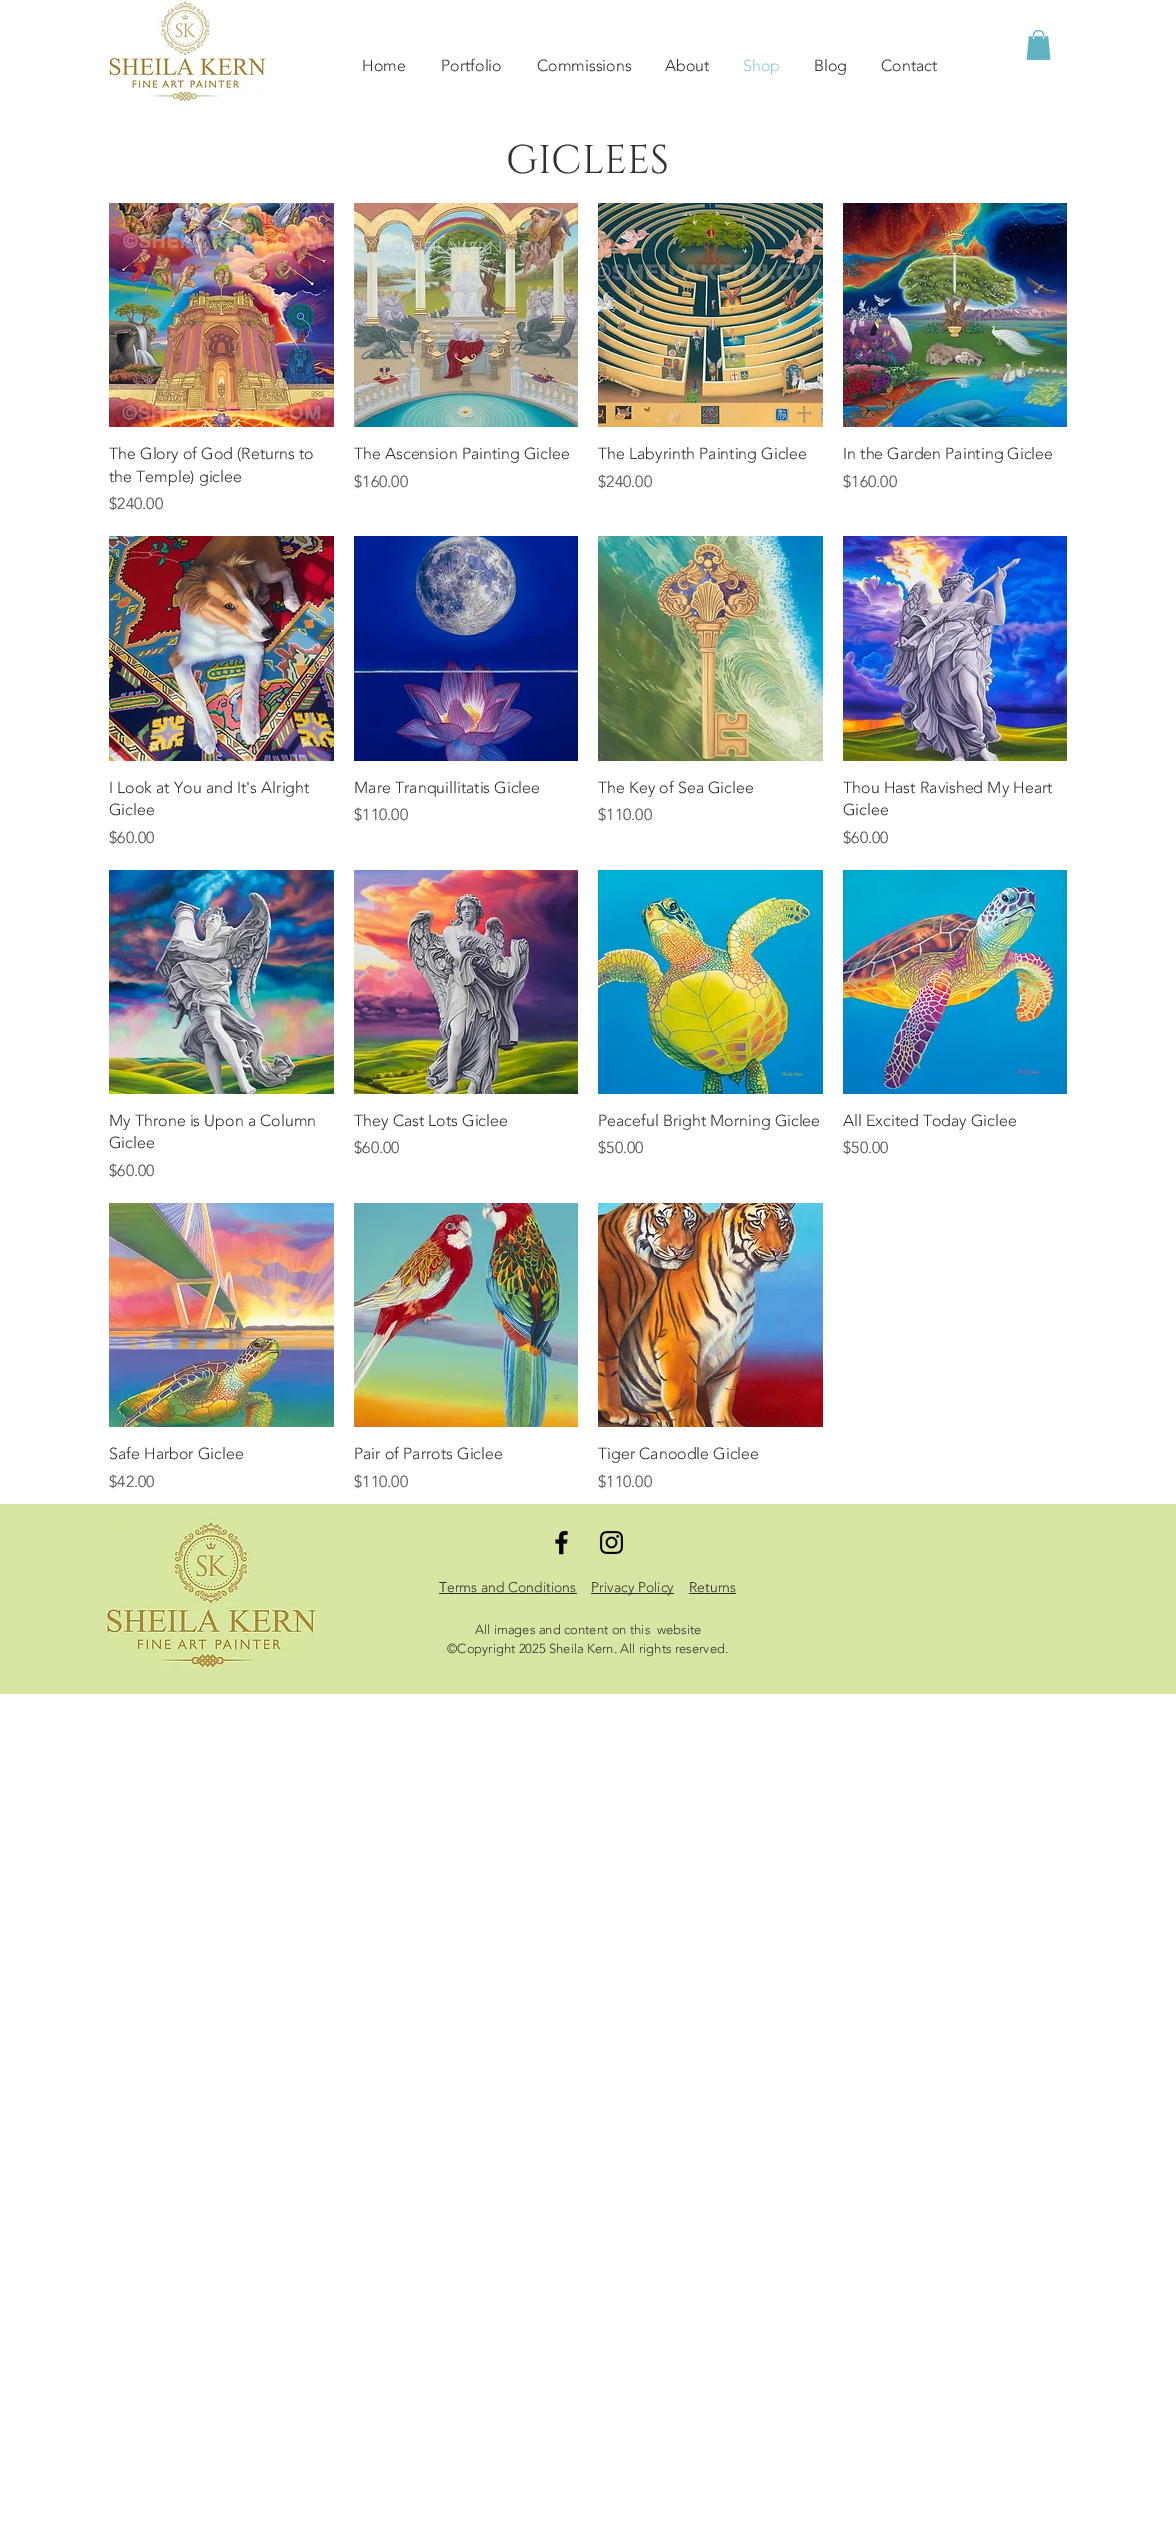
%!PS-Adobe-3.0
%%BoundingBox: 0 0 1176 2547
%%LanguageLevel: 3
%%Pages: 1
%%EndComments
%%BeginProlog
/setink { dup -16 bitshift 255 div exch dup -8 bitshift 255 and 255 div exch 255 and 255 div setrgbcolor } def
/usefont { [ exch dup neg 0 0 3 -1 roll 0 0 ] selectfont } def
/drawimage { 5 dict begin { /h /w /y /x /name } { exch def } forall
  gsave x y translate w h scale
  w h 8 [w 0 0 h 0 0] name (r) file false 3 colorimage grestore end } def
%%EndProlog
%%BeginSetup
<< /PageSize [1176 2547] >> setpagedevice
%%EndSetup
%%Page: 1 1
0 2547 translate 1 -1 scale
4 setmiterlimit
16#FFFFFF setink
0 0 1176 2547 rectfill
(img1.raw) 106 0 160 102 drawimage
(img2.raw) 1026 30 25 30 drawimage
/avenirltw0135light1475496-Light 16 usefont
16#303030 setink
[
    [(Home) 362 71]
    [(Portfolio) 441 71]
    [(Commissions) 537 71]
    [(About) 665 71]
] { aload pop moveto show } forall
16#8ECAD6 setink
743 71 moveto (Shop) show
16#303030 setink
814 71 moveto (Blog) show
881 71 moveto (Contact) show
/Cinzel-Regular 40 usefont
506 173 moveto (GICLEES) show
(img3.raw) 109 203 225 224 drawimage
/avenirltw0135light1475496-Light 16 usefont
109 459 moveto (The Glory of God \(Returns to) show
109 482 moveto (the Temple\) giclee) show
16#444444 setink
109 509 moveto ($240.00) show
(img4.raw) 354 203 224 224 drawimage
16#303030 setink
354 459 moveto (The Ascension Painting Giclee) show
16#444444 setink
354 487 moveto ($160.00) show
(img5.raw) 598 203 225 224 drawimage
16#303030 setink
598 459 moveto (The Labyrinth Painting Giclee) show
16#444444 setink
598 487 moveto ($240.00) show
(img6.raw) 843 203 224 224 drawimage
16#303030 setink
843 459 moveto (In the Garden Painting Giclee) show
16#444444 setink
843 487 moveto ($160.00) show
(img7.raw) 109 536 225 225 drawimage
16#303030 setink
109 793 moveto (I Look at You and It's Alright) show
109 815 moveto (Giclee) show
16#444444 setink
109 843 moveto ($60.00) show
(img8.raw) 354 536 224 225 drawimage
16#303030 setink
354 793 moveto (Mare Tranquillitatis Giclee) show
16#444444 setink
354 820 moveto ($110.00) show
(img9.raw) 598 536 225 225 drawimage
16#303030 setink
598 793 moveto (The Key of Sea Giclee) show
16#444444 setink
598 820 moveto ($110.00) show
(img10.raw) 843 536 224 225 drawimage
16#303030 setink
843 793 moveto (Thou Hast Ravished My Heart) show
843 815 moveto (Giclee) show
16#444444 setink
843 843 moveto ($60.00) show
(img11.raw) 109 870 225 224 drawimage
16#303030 setink
109 1126 moveto (My Throne is Upon a Column) show
109 1148 moveto (Giclee) show
16#444444 setink
109 1176 moveto ($60.00) show
(img12.raw) 354 870 224 224 drawimage
16#303030 setink
354 1126 moveto (They Cast Lots Giclee) show
16#444444 setink
354 1153 moveto ($60.00) show
(img13.raw) 598 870 225 224 drawimage
16#303030 setink
598 1126 moveto (Peaceful Bright Morning Giclee) show
16#444444 setink
598 1153 moveto ($50.00) show
(img14.raw) 843 870 224 224 drawimage
16#303030 setink
843 1126 moveto (All Excited Today Giclee) show
16#444444 setink
843 1153 moveto ($50.00) show
(img15.raw) 109 1203 225 224 drawimage
16#303030 setink
109 1459 moveto (Safe Harbor Giclee) show
16#444444 setink
109 1487 moveto ($42.00) show
(img16.raw) 354 1203 224 224 drawimage
16#303030 setink
354 1459 moveto (Pair of Parrots Giclee) show
16#444444 setink
354 1487 moveto ($110.00) show
(img17.raw) 598 1203 225 224 drawimage
16#303030 setink
598 1459 moveto (Tiger Canoodle Giclee) show
16#444444 setink
598 1487 moveto ($110.00) show
16#D7E7A3 setink
0 1504 1176 190 rectfill
(img18.raw) 104 1518 214 153 drawimage
(img19.raw) 555 1530 13 25 drawimage
(img20.raw) 599 1530 25 25 drawimage
/avenirltw0135light1475496-Light 14 usefont
16#303030 setink
439 1592 moveto (Terms and Conditions) show
439 1593 138 1 rectfill
591 1593 83 1 rectfill
591 1592 moveto (Privacy Policy) show
689 1592 moveto (Returns) show
689 1593 47 1 rectfill
/avenirltw0135light1475496-Light 13 usefont
[
    [(All images and content on this) 475 1634]
    [(website) 657 1634]
    [(©Copyright 2025 Sheila Kern. All rights reserved.) 447 1653]
] { aload pop moveto show } forall
showpage
%%EOF
